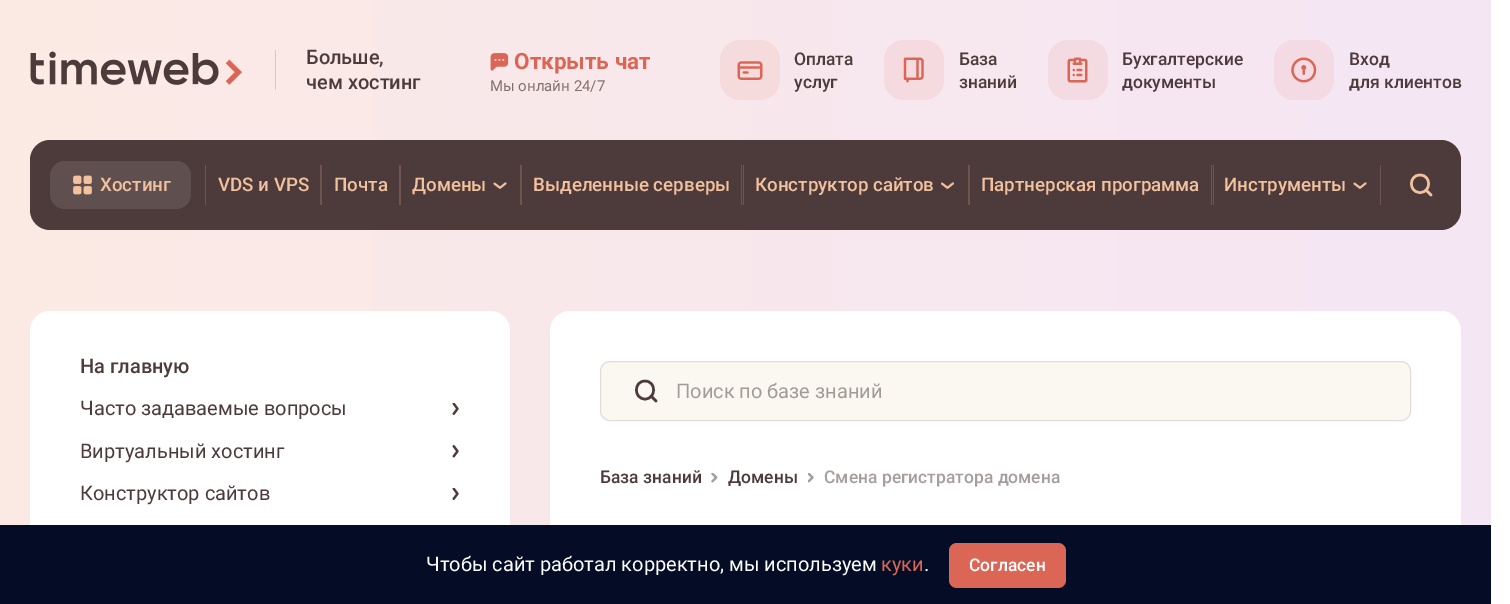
%!PS-Adobe-3.0
%%BoundingBox: 0 0 1510 604
%%LanguageLevel: 3
%%Pages: 1
%%EndComments
%%BeginProlog
/setink { dup -16 bitshift 255 div exch dup -8 bitshift 255 and 255 div exch 255 and 255 div setrgbcolor } def
/usefont { [ exch dup neg 0 0 3 -1 roll 0 0 ] selectfont } def
/setalpha { dup .setfillconstantalpha .setstrokeconstantalpha } def
/rrect { 5 dict begin { /r /h /w /y /x } { exch def } forall
  x r add y moveto x w add y 2 copy h add r arct x w add y h add x 1 index r arct
  x y h add x y r arct x y 2 copy exch w add exch r arct closepath end } def
/drawimage { 5 dict begin { /h /w /y /x /name } { exch def } forall
  gsave x y translate w h scale
  w h 8 [w 0 0 h 0 0] name (r) file false 3 colorimage grestore end } def
%%EndProlog
%%BeginSetup
<< /PageSize [1510 604] /PageUsesTransparency true >> setpagedevice
%%EndSetup
%%Page: 1 1
0 .pushpdf14devicefilter
0 604 translate 1 -1 scale
4 setmiterlimit
16#FFFFFF setink
0 0 1510 604 rectfill
gsave 0 0 moveto 1491 0 lineto 1491 525 lineto 0 525 lineto closepath clip newpath
<< /ShadingType 2 /ColorSpace /DeviceRGB /Coords [0 522 1491 522] /Extend [true true] /Function << /FunctionType 2 /Domain [0 1] /C0 [0.988 0.918 0.894] /C1 [0.961 0.902 0.961] /N 1 >> >> shfill grestore
(img1.raw) 30 51 212 34 drawimage
16#D8C6C5 setink
275 50 1 40 rectfill
/Roboto-Medium 20 usefont
16#4D3B3B setink
306 64 moveto (Больше,) show
306 89 moveto (чем хостинг) show
(img2.raw) 490 53 19 18 drawimage
/Roboto-Bold 22.5 usefont
16#DC6655 setink
514 69 moveto (Открыть чат) show
/Roboto-Regular 15 usefont
16#836E6E setink
490 91 moveto (Мы онлайн 24/7) show
16#F6DBDD setink
720 40 60 60 20 rrect fill
(img3.raw) 737 61 26 19 drawimage
/Roboto-Medium 17.5 usefont
16#4D3B3B setink
794 65 moveto (Оплата) show
794 88 moveto (услуг) show
16#F5DBDF setink
884 40 60 60 20 rrect fill
(img4.raw) 903 57 21 26 drawimage
16#4D3B3B setink
959 65 moveto (База) show
959 88 moveto (знаний) show
16#F4DAE1 setink
1048 40 60 60 20 rrect fill
(img5.raw) 1067 57 21 26 drawimage
16#4D3B3B setink
1122 65 moveto (Бухгалтерские) show
1122 88 moveto (документы) show
16#F3DAE3 setink
1274 40 60 60 20 rrect fill
(img6.raw) 1291 57 26 26 drawimage
16#4D3B3B setink
1349 65 moveto (Вход) show
1349 88 moveto (для клиентов) show
30 140 1431 90 20 rrect fill
16#5F4F4F setink
50 161 141 48 15 rrect fill
(img7.raw) 73 175 19 20 drawimage
/Roboto-Medium 18.75 usefont
16#F2C19D setink
100 191 moveto (Хостинг) show
16#6E564F setink
205 165 1 40 rectfill
16#F2C19D setink
218 191 moveto (VDS и VPS) show
16#6E564F setink
320 165 2 40 rectfill
16#F2C19D setink
334 191 moveto (Почта) show
16#6E564F setink
399 165 2 40 rectfill
16#F2C19D setink
412 191 moveto (Домены) show
(img8.raw) 493 182 14 7 drawimage
16#6E564F setink
520 165 2 40 rectfill
16#F2C19D setink
533 191 moveto (Выделенные серверы) show
16#6E564F setink
741 165 1 40 rectfill
743 165 1 40 rectfill
16#F2C19D setink
755 191 moveto (Конструктор сайтов) show
(img9.raw) 940 182 14 7 drawimage
16#6E564F setink
968 165 2 40 rectfill
16#F2C19D setink
981 191 moveto (Партнерская программа) show
16#6E564F setink
1211 165 1 40 rectfill
1213 165 1 40 rectfill
16#F2C19D setink
1224 191 moveto (Инструменты) show
(img8.raw) 1353 182 14 7 drawimage
16#6E564F setink
1380 165 1 40 rectfill
16#F2C19D setink
2.5 setlinewidth
1 setlinecap
1 setlinejoin
1420 192.5 moveto 1431.5 192.5 1431.5 175 1420 175 curveto 1408.5 175 1408.5 192.5 1420 192.5 curveto closepath 1431 195 moveto 1426 190 lineto stroke
16#FFFFFF setink
30 311 480 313 20 rrect fill
/Roboto-Medium 20 usefont
16#4D3B3B setink
80 373 moveto (На главную) show
/Roboto-Regular 20 usefont
80 415 moveto (Часто задаваемые вопросы) show
(img10.raw) 452 403 7 12 drawimage
80 458 moveto (Виртуальный хостинг) show
(img11.raw) 452 445 7 13 drawimage
80 500 moveto (Конструктор сайтов) show
(img10.raw) 452 488 7 12 drawimage
16#FFFFFF setink
550 311 911 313 20 rrect fill
16#FBF8F2 setink
600 361 811 60 10 rrect fill
0.15 setalpha
16#4D3B3B setink
1 setlinewidth
0 setlinecap
0 setlinejoin
600.5 361.5 810 59 9.5 rrect stroke
1 setalpha
2.5 setlinewidth
1 setlinecap
1 setlinejoin
645 399 moveto 656.5 399 656.5 381 645 381 curveto 633.5 381 633.5 399 645 399 curveto closepath 656 401 moveto 651 396 lineto stroke
16#A49A97 setink
676 398 moveto (Поиск по базе знаний) show
/Roboto-Medium 17.5 usefont
16#4D3B3B setink
600 483 moveto (База знаний) show
(img12.raw) 711 473 7 10 drawimage
728 483 moveto (Домены) show
(img13.raw) 808 473 6 10 drawimage
16#A69D9D setink
824 483 moveto (Смена регистратора домена) show
16#050C26 setink
0 525 1491 79 rectfill
/Roboto-Regular 20 usefont
16#FFFFFF setink
426 571 moveto (Чтобы сайт работал корректно, мы используем) show
16#DC6655 setink
881 571 moveto (куки) show
16#FFFFFF setink
924 571 moveto (.) show
16#DC6655 setink
949 543 117 45 8 rrect fill
/Roboto-Medium 17.5 usefont
16#FFFFFF setink
969 571 moveto (Согласен) show
.poppdf14devicefilter showpage
%%EOF
